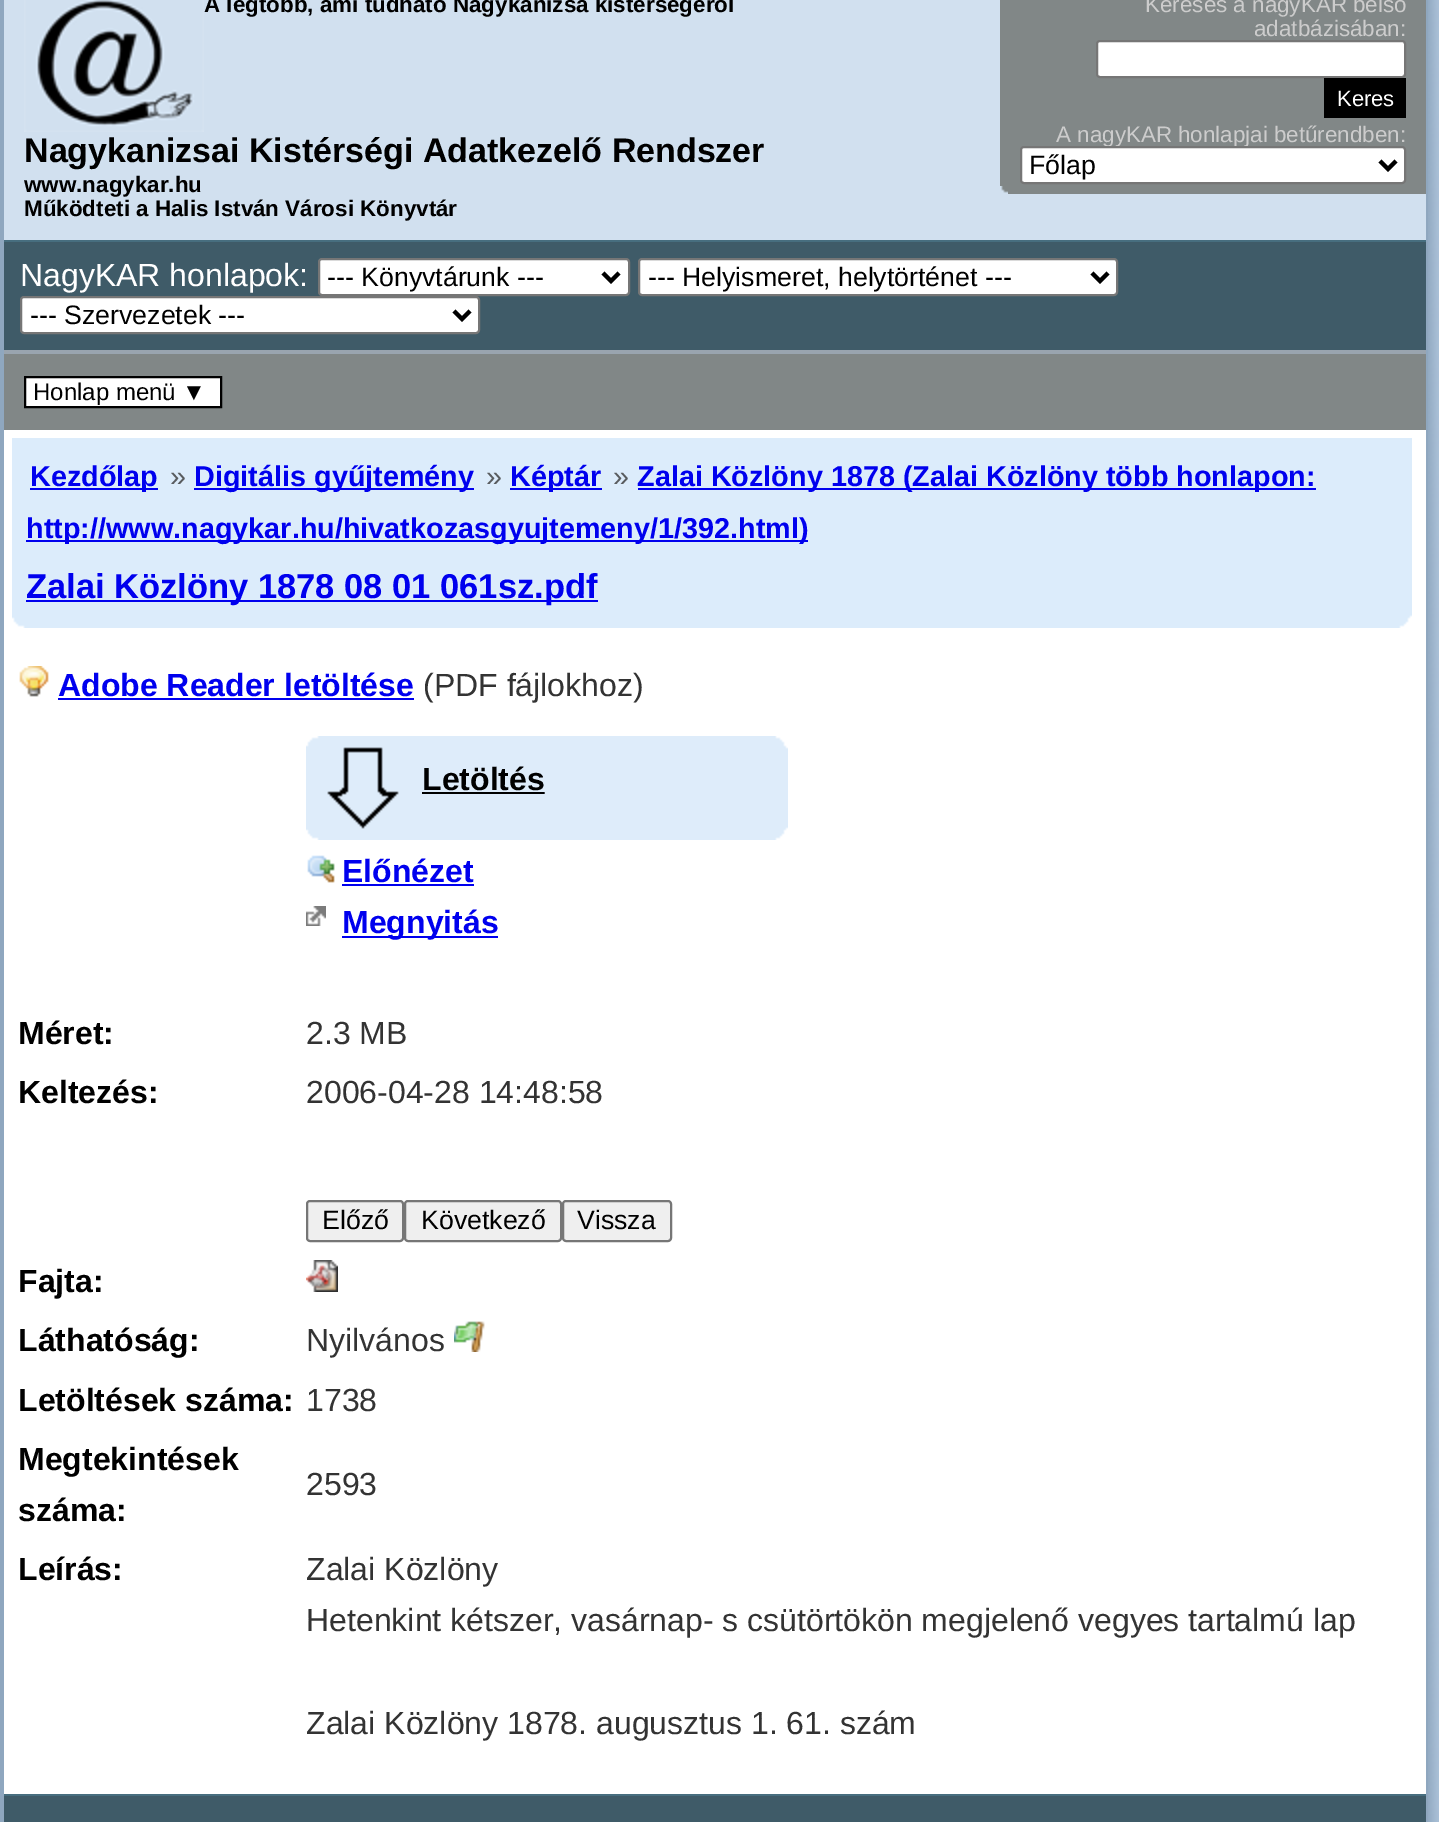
%!PS-Adobe-3.0
%%BoundingBox: 0 0 1439 1822
%%LanguageLevel: 3
%%Pages: 1
%%EndComments
%%BeginProlog
/setink { dup -16 bitshift 255 div exch dup -8 bitshift 255 and 255 div exch 255 and 255 div setrgbcolor } def
/usefont { [ exch dup neg 0 0 3 -1 roll 0 0 ] selectfont } def
/rrect { 5 dict begin { /r /h /w /y /x } { exch def } forall
  x r add y moveto x w add y 2 copy h add r arct x w add y h add x 1 index r arct
  x y h add x y r arct x y 2 copy exch w add exch r arct closepath end } def
/drawimage { 5 dict begin { /h /w /y /x /name } { exch def } forall
  gsave x y translate w h scale
  w h 8 [w 0 0 h 0 0] name (r) file false 3 colorimage grestore end } def
%%EndProlog
%%BeginSetup
<< /PageSize [1439 1822] >> setpagedevice
%%EndSetup
%%Page: 1 1
0 1822 translate 1 -1 scale
4 setmiterlimit
16#8FA7BF setink
0 0 1439 1822 rectfill
(img1.raw) 1428 0 11 1822 drawimage
[
    [4 430 1422 1364 16#FFFFFF]
    [4 0 1422 240 16#D1E0EF]
    [4 350 1422 4 16#99A4AF]
] { aload pop setink rectfill } forall
(img2.raw) 24 0 180 132 drawimage
/LiberationSans-Bold 22.4 usefont
16#000000 setink
204 12 moveto (A legtöbb, ami tudható Nagykanizsa kistérségéről) show
/LiberationSans-Bold 34 usefont
24 162 moveto (Nagykanizsai Kistérségi Adatkezelő Rendszer) show
/LiberationSans-Bold 22.4 usefont
24 192 moveto (www.nagykar.hu) show
24 216 moveto (Működteti a Halis István Városi Könyvtár) show
16#818787 setink
1000 0 426 194 rectfill
(img3.raw) 1000 186 8 8 drawimage
/LiberationSans-Regular 22.4 usefont
16#CCCCCC setink
1145 12 moveto (Keresés a nagyKAR belső) show
1254 36 moveto (adatbázisában:) show
16#FFFFFF setink
1097 41 308 36 3 rrect gsave fill grestore
16#767676 setink
2 setlinewidth
stroke
16#000000 setink
1324 78 82 40 rectfill
/LiberationSans-Regular 22 usefont
16#FFFFFF setink
1337 106 moveto (Keres) show
/LiberationSans-Regular 22.4 usefont
16#CCCCCC setink
1056 142 moveto (A nagyKAR honlapjai betűrendben:) show
16#FFFFFF setink
1021 147 384 36 3 rrect gsave fill grestore
16#767676 setink
stroke
16#000000 setink
4 setlinewidth
1380 161 moveto 1388 169 lineto 1396 161 lineto stroke
/LiberationSans-Regular 26.7 usefont
1029 174 moveto (Főlap) show
16#3F5B68 setink
4 242 1422 108 rectfill
16#476E7F setink
4 240 1422 2 rectfill
/LiberationSans-Regular 32 usefont
16#FFFFFF setink
20 286 moveto (NagyKAR honlapok:) show
319 259 310 36 3 rrect gsave fill grestore
16#767676 setink
2 setlinewidth
stroke
16#000000 setink
4 setlinewidth
603 273 moveto 611 281 lineto 619 273 lineto stroke
/LiberationSans-Regular 26.7 usefont
327 286 moveto (--- Könyvtárunk ---) show
16#FFFFFF setink
639 259 478 36 3 rrect gsave fill grestore
16#767676 setink
2 setlinewidth
stroke
16#000000 setink
4 setlinewidth
1092 273 moveto 1100 281 lineto 1108 273 lineto stroke
648 286 moveto (--- Helyismeret, helytörténet ---) show
16#FFFFFF setink
21 297 458 36 3 rrect gsave fill grestore
16#767676 setink
2 setlinewidth
stroke
16#000000 setink
4 setlinewidth
454 311 moveto 462 319 lineto 470 311 lineto stroke
30 324 moveto (--- Szervezetek ---) show
16#818787 setink
4 354 1422 76 rectfill
16#FFFFFF setink
25 377 moveto 221 377 lineto 221 407 lineto 25 407 lineto closepath gsave fill grestore
16#000000 setink
2 setlinewidth
stroke
/LiberationSans-Regular 24 usefont
33 400 moveto (Honlap menü ▼) show
16#DCECFB setink
12 438 1400 190 rectfill
(img4.raw) 12 617 13 11 drawimage
(img5.raw) 1399 615 13 13 drawimage
16#0000EE setink
30 488 128 2 rectfill
/LiberationSans-Bold 28.8 usefont
30 486 moveto (Kezdőlap) show
/LiberationSans-Regular 28.8 usefont
16#595C5F setink
170 486 moveto (») show
16#0000EE setink
194 488 280 2 rectfill
/LiberationSans-Bold 28.8 usefont
194 486 moveto (Digitális gyűjtemény) show
/LiberationSans-Regular 28.8 usefont
16#595C5F setink
486 486 moveto (») show
16#0000EE setink
510 488 92 2 rectfill
/LiberationSans-Bold 28.8 usefont
510 486 moveto (Képtár) show
/LiberationSans-Regular 28.8 usefont
16#595C5F setink
613 486 moveto (») show
16#0000EE setink
638 488 678 2 rectfill
/LiberationSans-Bold 28.8 usefont
637 486 moveto (Zalai Közlöny 1878 \(Zalai Közlöny több honlapon:) show
26 540 782 2 rectfill
26 538 moveto (http://www.nagykar.hu/hivatkozasgyujtemeny/1/392.html\)) show
26 600 572 2 rectfill
/LiberationSans-Bold 34.5 usefont
26 598 moveto (Zalai Közlöny 1878 08 01 061sz.pdf) show
(img6.raw) 19 666 30 31 drawimage
/LiberationSans-Bold 32 usefont
58 696 moveto (Adobe Reader letöltése) show
58 698 356 2 rectfill
/LiberationSans-Regular 32 usefont
16#333333 setink
423 696 moveto (\(PDF fájlokhoz\)) show
16#DEECFA setink
306 736 482 104 rectfill
(img7.raw) 306 827 482 13 drawimage
(img8.raw) 306 736 482 93 drawimage
/LiberationSans-Bold 32 usefont
16#000000 setink
422 790 moveto (Letöltés) show
(img9.raw) 307 855 28 28 drawimage
16#0000EE setink
342 882 moveto (Előnézet) show
342 884 132 2 rectfill
(img10.raw) 306 906 20 20 drawimage
342 936 156 2 rectfill
342 933 moveto (Megnyitás) show
16#000000 setink
18 1044 moveto (Méret:) show
/LiberationSans-Regular 32 usefont
16#333333 setink
306 1044 moveto (2.3 MB) show
/LiberationSans-Bold 32 usefont
16#000000 setink
18 1103 moveto (Keltezés:) show
/LiberationSans-Regular 32 usefont
16#333333 setink
306 1103 moveto (2006-04-28 14:48:58) show
16#EFEFEF setink
307 1201 96 40 3 rrect gsave fill grestore
16#767676 setink
stroke
/LiberationSans-Regular 26.7 usefont
16#000000 setink
322 1229 moveto (Előző) show
16#EFEFEF setink
405 1201 156 40 3 rrect gsave fill grestore
16#767676 setink
stroke
16#000000 setink
421 1229 moveto (Következő) show
16#EFEFEF setink
563 1201 108 40 3 rrect gsave fill grestore
16#767676 setink
stroke
16#000000 setink
577 1229 moveto (Vissza) show
/LiberationSans-Bold 32 usefont
18 1292 moveto (Fajta:) show
(img11.raw) 306 1260 32 32 drawimage
18 1351 moveto (Láthatóság:) show
/LiberationSans-Regular 32 usefont
16#333333 setink
306 1351 moveto (Nyilvános) show
(img12.raw) 454 1321 31 31 drawimage
/LiberationSans-Bold 32 usefont
16#000000 setink
18 1411 moveto (Letöltések száma:) show
/LiberationSans-Regular 32 usefont
16#333333 setink
306 1411 moveto (1738) show
/LiberationSans-Bold 32 usefont
16#000000 setink
18 1470 moveto (Megtekintések) show
18 1521 moveto (száma:) show
/LiberationSans-Regular 32 usefont
16#333333 setink
306 1495 moveto (2593) show
/LiberationSans-Bold 32 usefont
16#000000 setink
18 1580 moveto (Leírás:) show
/LiberationSans-Regular 32 usefont
16#333333 setink
[
    [(Zalai Közlöny) 306 1580]
    [(Hetenkint kétszer, vasárnap- s csütörtökön megjelenő vegyes tartalmú lap) 306 1631]
    [(Zalai Közlöny 1878. augusztus 1. 61. szám) 306 1734]
] { aload pop moveto show } forall
16#3F5B68 setink
4 1796 1422 26 rectfill
16#476E7F setink
4 1794 1422 2 rectfill
showpage
%%EOF
